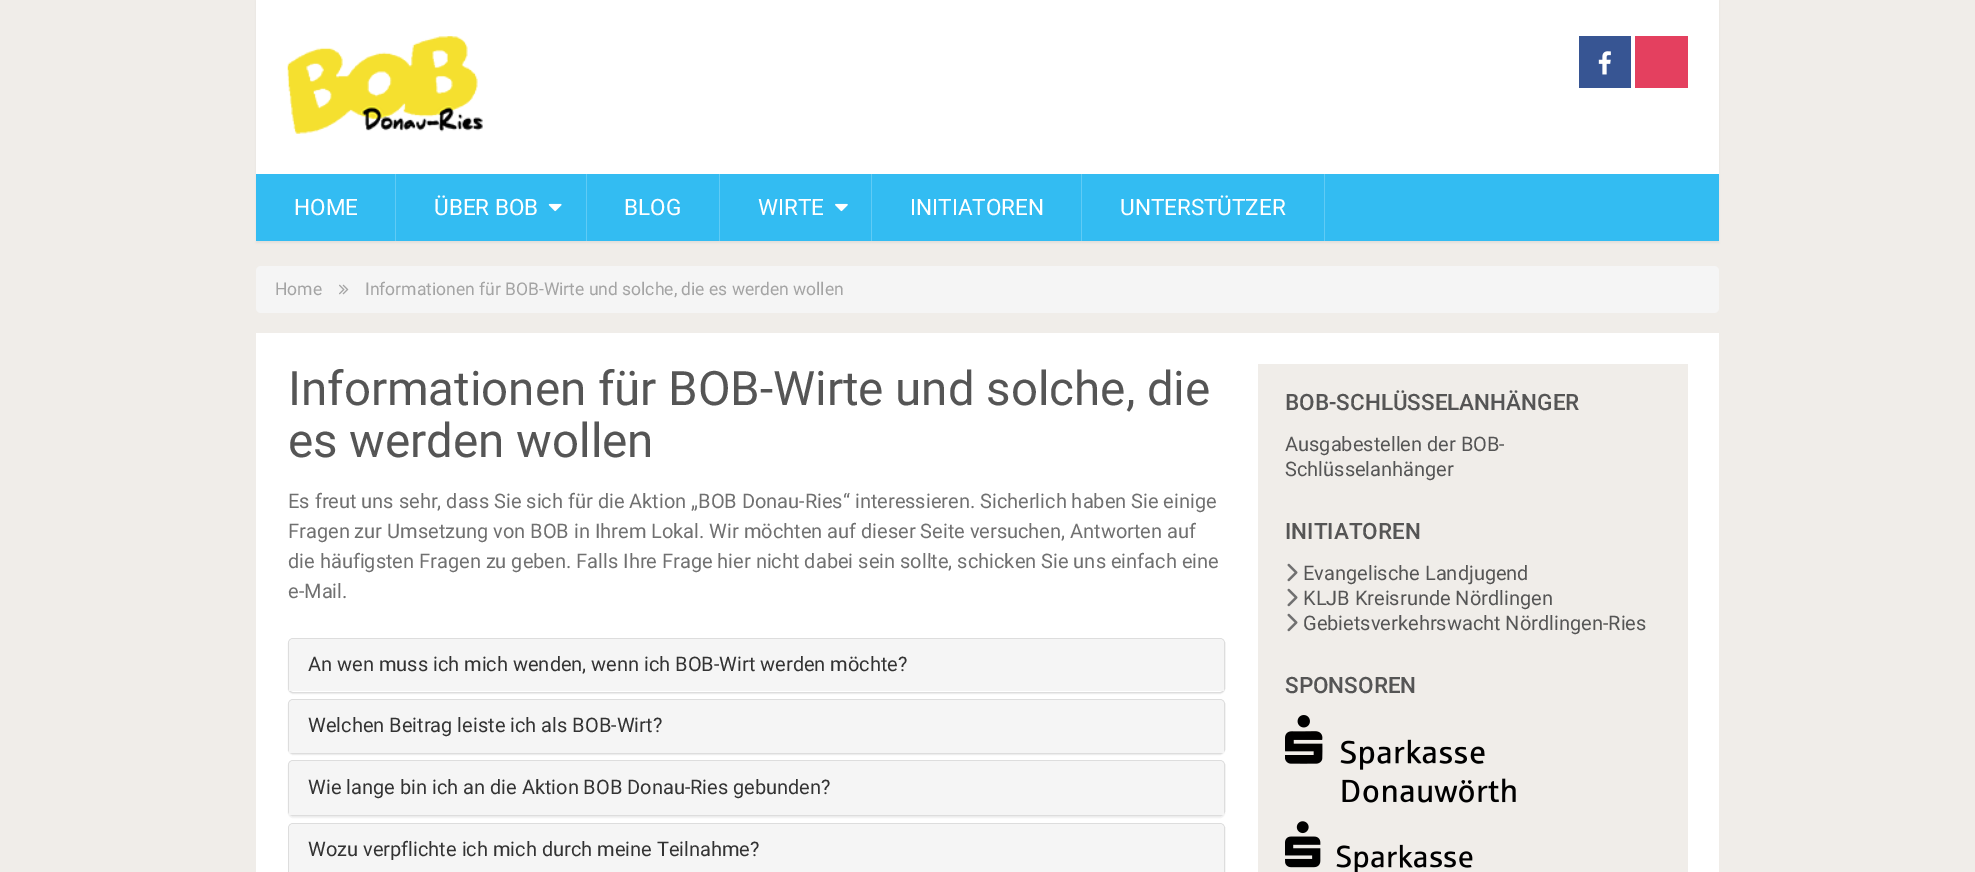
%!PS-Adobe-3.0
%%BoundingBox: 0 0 1975 872
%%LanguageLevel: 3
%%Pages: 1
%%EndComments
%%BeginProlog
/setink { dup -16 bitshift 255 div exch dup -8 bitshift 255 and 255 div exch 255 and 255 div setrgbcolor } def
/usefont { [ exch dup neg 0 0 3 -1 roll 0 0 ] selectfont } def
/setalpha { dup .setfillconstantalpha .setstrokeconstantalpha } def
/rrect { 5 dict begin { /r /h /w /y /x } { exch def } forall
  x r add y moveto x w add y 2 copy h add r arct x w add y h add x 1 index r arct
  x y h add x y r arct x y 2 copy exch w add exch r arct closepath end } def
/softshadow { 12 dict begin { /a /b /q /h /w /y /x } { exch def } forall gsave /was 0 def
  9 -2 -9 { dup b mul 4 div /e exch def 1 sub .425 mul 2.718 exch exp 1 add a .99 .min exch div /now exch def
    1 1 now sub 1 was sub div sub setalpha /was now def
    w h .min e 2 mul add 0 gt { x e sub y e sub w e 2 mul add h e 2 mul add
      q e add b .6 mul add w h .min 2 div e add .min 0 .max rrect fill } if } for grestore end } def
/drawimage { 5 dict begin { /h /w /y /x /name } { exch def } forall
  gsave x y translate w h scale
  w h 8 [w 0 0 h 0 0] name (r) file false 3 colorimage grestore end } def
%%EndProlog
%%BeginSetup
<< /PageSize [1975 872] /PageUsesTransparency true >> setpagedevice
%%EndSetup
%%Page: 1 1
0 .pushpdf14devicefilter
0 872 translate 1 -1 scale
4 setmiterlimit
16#F0EDE9 setink
0 0 1975 872 rectfill
16#000000 setink
256 1 1463 242 0 1 0.05 softshadow
16#FFFFFF setink
256 0 1463 174 rectfill
(img1.raw) 287 36 196 98 drawimage
16#375593 setink
1579 36 52 52 rectfill
(img2.raw) 1598 51 13 24 drawimage
[
    [1635 36 53 52 16#E4405F]
    [256 174 1463 67 16#33BCF2]
    [395 174 1 67 16#60CBF5]
] { aload pop setink rectfill } forall
/Roboto-Regular 22.5 usefont
16#FFFFFF setink
294 215 moveto (HOME) show
16#60CBF5 setink
586 174 1 67 rectfill
16#FFFFFF setink
434 215 moveto (ÜBER BOB) show
(img3.raw) 548 203 14 9 drawimage
16#60CBF5 setink
719 174 1 67 rectfill
16#FFFFFF setink
624 215 moveto (BLOG) show
16#60CBF5 setink
871 174 1 67 rectfill
16#FFFFFF setink
758 215 moveto (WIRTE) show
(img4.raw) 835 203 13 9 drawimage
16#60CBF5 setink
1081 174 1 67 rectfill
16#FFFFFF setink
910 215 moveto (INITIATOREN) show
16#60CBF5 setink
1324 174 1 67 rectfill
16#FFFFFF setink
1120 215 moveto (UNTERSTÜTZER) show
16#F5F5F5 setink
256 266 1463 47 5 rrect fill
/Roboto-Regular 17.5 usefont
16#A4A4A4 setink
275 295 moveto (Home) show
(img5.raw) 339 284 10 11 drawimage
365 295 moveto (Informationen für BOB-Wirte und solche, die es werden wollen) show
16#FFFFFF setink
256 333 1463 539 rectfill
/Roboto-Regular 47.5 usefont
16#555555 setink
288 405 moveto (Informationen für BOB-Wirte und solche, die) show
288 457 moveto (es werden wollen) show
/Roboto-Regular 20 usefont
16#707070 setink
[
    [(Es freut uns sehr, dass Sie sich für die Aktion „BOB Donau-Ries“ interessieren. Sicherlich haben Sie einige) 288 508]
    [(Fragen zur Umsetzung von BOB in Ihrem Lokal. Wir möchten auf dieser Seite versuchen, Antworten auf) 288 538]
    [(die häufigsten Fragen zu geben. Falls Ihre Frage hier nicht dabei sein sollte, schicken Sie uns einfach eine) 288 568]
    [(e-Mail.) 288 598]
] { aload pop moveto show } forall
16#000000 setink
288 639 937 55 5 0.5 0.05 softshadow
16#FFFFFF setink
288.5 638.5 936 54 4.5 rrect gsave fill grestore
16#DDDDDD setink
stroke
16#F5F5F5 setink
293 639 moveto 1220 639 lineto 1222 639 1224 641 1224 643 curveto 1224 691 lineto 289 691 lineto 289 643 lineto 289 641 291 639 293 639 curveto closepath fill
16#333333 setink
308 671 moveto (An wen muss ich mich wenden, wenn ich BOB-Wirt werden möchte?) show
16#000000 setink
288 700 937 55 5 0.5 0.05 softshadow
16#DDDDDD setink
288.5 699.5 936 54 4.5 rrect stroke
16#F5F5F5 setink
293 700 moveto 1220 700 lineto 1222 700 1224 702 1224 704 curveto 1224 753 lineto 289 753 lineto 289 704 lineto 289 702 291 700 293 700 curveto closepath fill
16#333333 setink
308 732 moveto (Welchen Beitrag leiste ich als BOB-Wirt?) show
16#000000 setink
288 761 937 57 5 0.5 0.05 softshadow
16#DDDDDD setink
288.5 760.5 936 55 4.5 rrect stroke
16#F5F5F5 setink
293 761 moveto 1220 761 lineto 1222 761 1224 763 1224 765 curveto 1224 815 lineto 289 815 lineto 289 765 lineto 289 763 291 761 293 761 curveto closepath fill
16#333333 setink
308 794 moveto (Wie lange bin ich an die Aktion BOB Donau-Ries gebunden?) show
16#DDDDDD setink
288.5 823.5 936 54 4.5 rrect stroke
16#F5F5F5 setink
293 824 moveto 1220 824 lineto 1222 824 1224 826 1224 828 curveto 1224 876 lineto 289 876 lineto 289 828 lineto 289 826 291 824 293 824 curveto closepath fill
16#333333 setink
308 856 moveto (Wozu verpflichte ich mich durch meine Teilnahme?) show
16#F0EDE9 setink
1258 364 430 508 rectfill
/Roboto-Medium 22.5 usefont
16#555555 setink
1285 410 moveto (BOB-SCHLÜSSELANHÄNGER) show
/Roboto-Regular 20 usefont
1285 451 moveto (Ausgabestellen der BOB-) show
1285 476 moveto (Schlüsselanhänger) show
/Roboto-Medium 22.5 usefont
1285 539 moveto (INITIATOREN) show
(img6.raw) 1287 563 11 19 drawimage
/Roboto-Regular 20 usefont
1303 580 moveto (Evangelische Landjugend) show
(img6.raw) 1287 588 11 19 drawimage
1303 605 moveto (KLJB Kreisrunde Nördlingen) show
(img6.raw) 1287 613 11 19 drawimage
1303 630 moveto (Gebietsverkehrswacht Nördlingen-Ries) show
/Roboto-Medium 22.5 usefont
1285 693 moveto (SPONSOREN) show
(img7.raw) 1285 715 231 88 drawimage
(img8.raw) 1285 821 188 51 drawimage
.poppdf14devicefilter showpage
%%EOF
